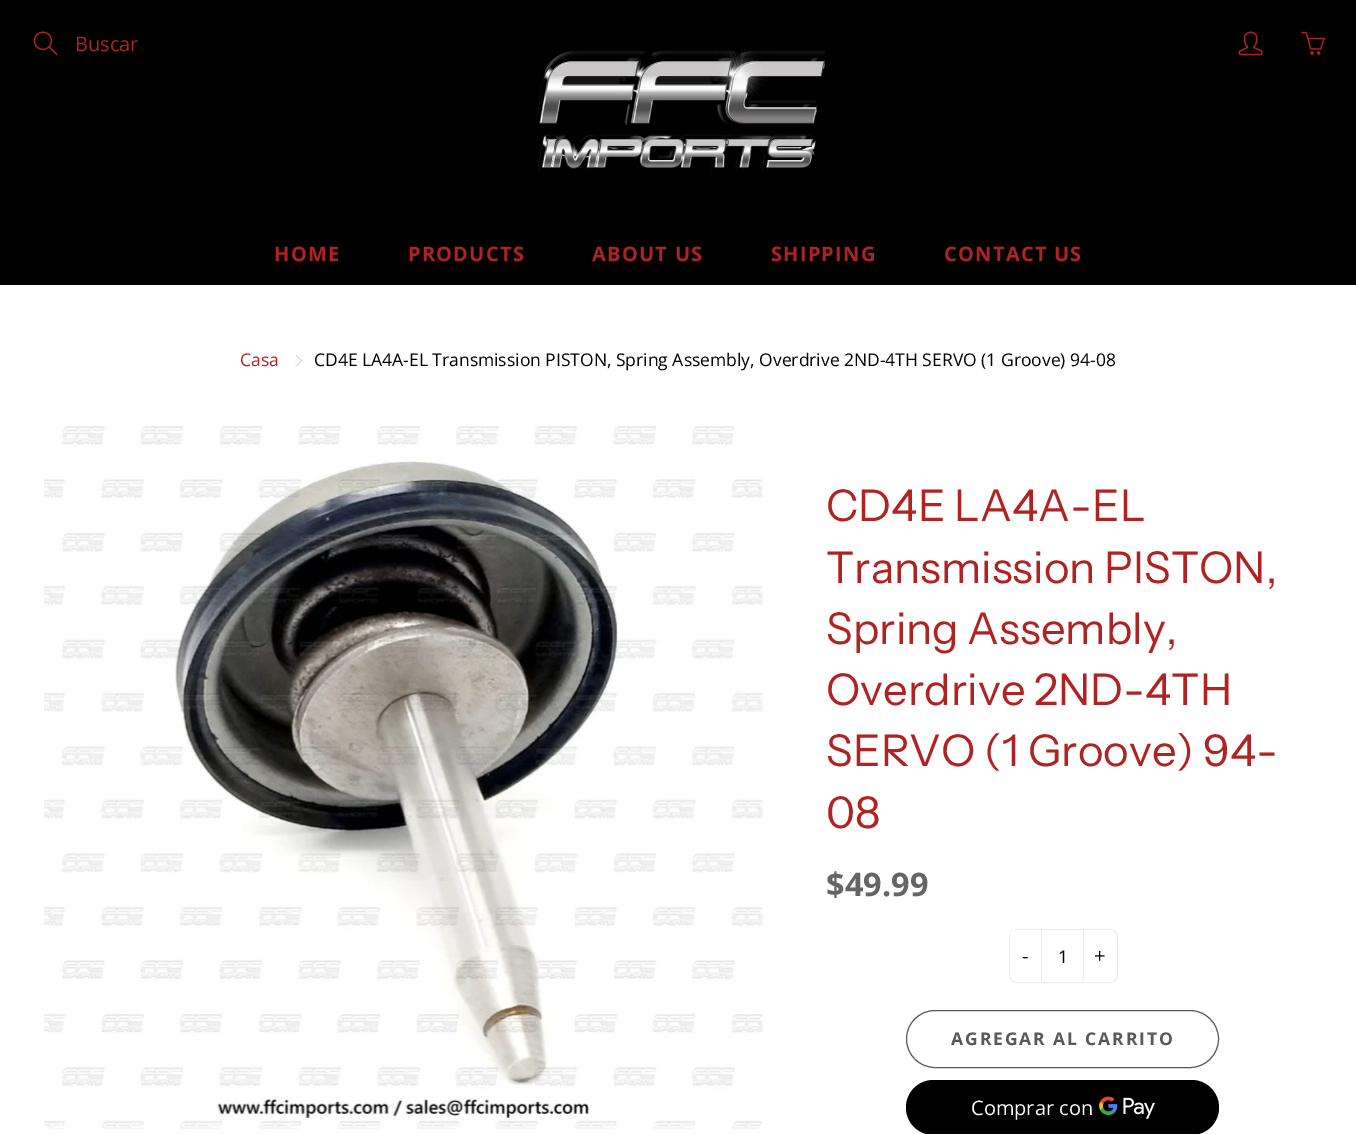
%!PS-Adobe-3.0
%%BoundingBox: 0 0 1356 1134
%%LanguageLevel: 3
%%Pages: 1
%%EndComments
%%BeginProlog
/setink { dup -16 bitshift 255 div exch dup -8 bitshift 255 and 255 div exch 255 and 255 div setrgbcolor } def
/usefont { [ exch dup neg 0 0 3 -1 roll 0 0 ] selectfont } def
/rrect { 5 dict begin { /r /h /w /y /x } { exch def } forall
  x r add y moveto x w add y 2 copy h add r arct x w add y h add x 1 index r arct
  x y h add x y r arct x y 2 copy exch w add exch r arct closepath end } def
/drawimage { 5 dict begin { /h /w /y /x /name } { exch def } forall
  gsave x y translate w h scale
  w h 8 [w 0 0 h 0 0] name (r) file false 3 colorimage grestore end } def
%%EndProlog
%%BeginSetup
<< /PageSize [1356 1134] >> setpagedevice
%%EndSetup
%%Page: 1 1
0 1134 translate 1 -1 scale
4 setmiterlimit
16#FFFFFF setink
0 0 1356 1134 rectfill
16#000000 setink
0 0 1356 285 rectfill
(img1.raw) 33 31 25 25 drawimage
/OpenSans-Regular 20 usefont
16#B12323 setink
75 51 moveto (Buscar) show
(img2.raw) 536 45 290 127 drawimage
(img3.raw) 1238 31 25 25 drawimage
(img4.raw) 1301 31 24 24 drawimage
/OpenSans-Bold 20 usefont
274 261 moveto 1.25 0 (HOME) ashow
408 261 moveto 1.25 0 (PRODUCTS) ashow
592 261 moveto 1.25 0 (ABOUT US) ashow
771 261 moveto 1.25 0 (SHIPPING) ashow
944 261 moveto 1.25 0 (CONTACT US) ashow
/OpenSans-Regular 17.5 usefont
240 366 moveto (Casa) show
(img5.raw) 295 354 7 13 drawimage
16#000000 setink
314 366 moveto (CD4E LA4A-EL Transmission PISTON, Spring Assembly, Overdrive 2ND-4TH SERVO \(1 Groove\) 94-08) show
(img6.raw) 44 426 719 703 drawimage
/InstrumentSans-Regular 43.75 usefont
16#B12323 setink
[
    [(CD4E LA4A-EL) 826 521]
    [(Transmission PISTON,) 826 583]
    [(Spring Assembly,) 826 644]
    [(Overdrive 2ND-4TH) 826 705]
    [(SERVO \(1 Groove\) 94-) 826 766]
    [(08) 826 828]
] { aload pop moveto show } forall
/OpenSans-Bold 32.5 usefont
16#666565 setink
826 896 moveto ($49.99) show
16#EDEDED setink
1009.5 929.5 108 53 7.5 rrect stroke
16#FFFFFF setink
1016 930 moveto 1041 930 lineto 1041 981 lineto 1016 981 lineto 1012.5 981 1010 978.5 1010 975 curveto 1010 936 lineto 1010 932.5 1012.5 930 1016 930 curveto closepath fill
/OpenSans-Regular 20 usefont
16#000000 setink
1022 963 moveto (-) show
16#EDEDED setink
1083 930 1 51 rectfill
1041 930 1 51 rectfill
/OpenSans-Regular 17.5 usefont
16#000000 setink
1058 963 moveto (1) show
16#FFFFFF setink
1084 930 moveto 1110 930 lineto 1113.5 930 1116 932.5 1116 936 curveto 1116 975 lineto 1116 978.5 1113.5 981 1110 981 curveto 1084 981 lineto closepath fill
/OpenSans-Regular 20 usefont
16#000000 setink
1094 963 moveto (+) show
16#595959 setink
906.5 1010.5 312 57 28.5 rrect stroke
/OpenSans-Bold 17.5 usefont
951 1045 moveto 1.9 0 (AGREGAR AL CARRITO) ashow
16#000000 setink
906 1080 313 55 27.5 rrect fill
/OpenSans-Regular 20 usefont
16#FFFFFF setink
971 1115 moveto (Comprar con) show
(img7.raw) 1099 1096 56 23 drawimage
showpage
%%EOF
